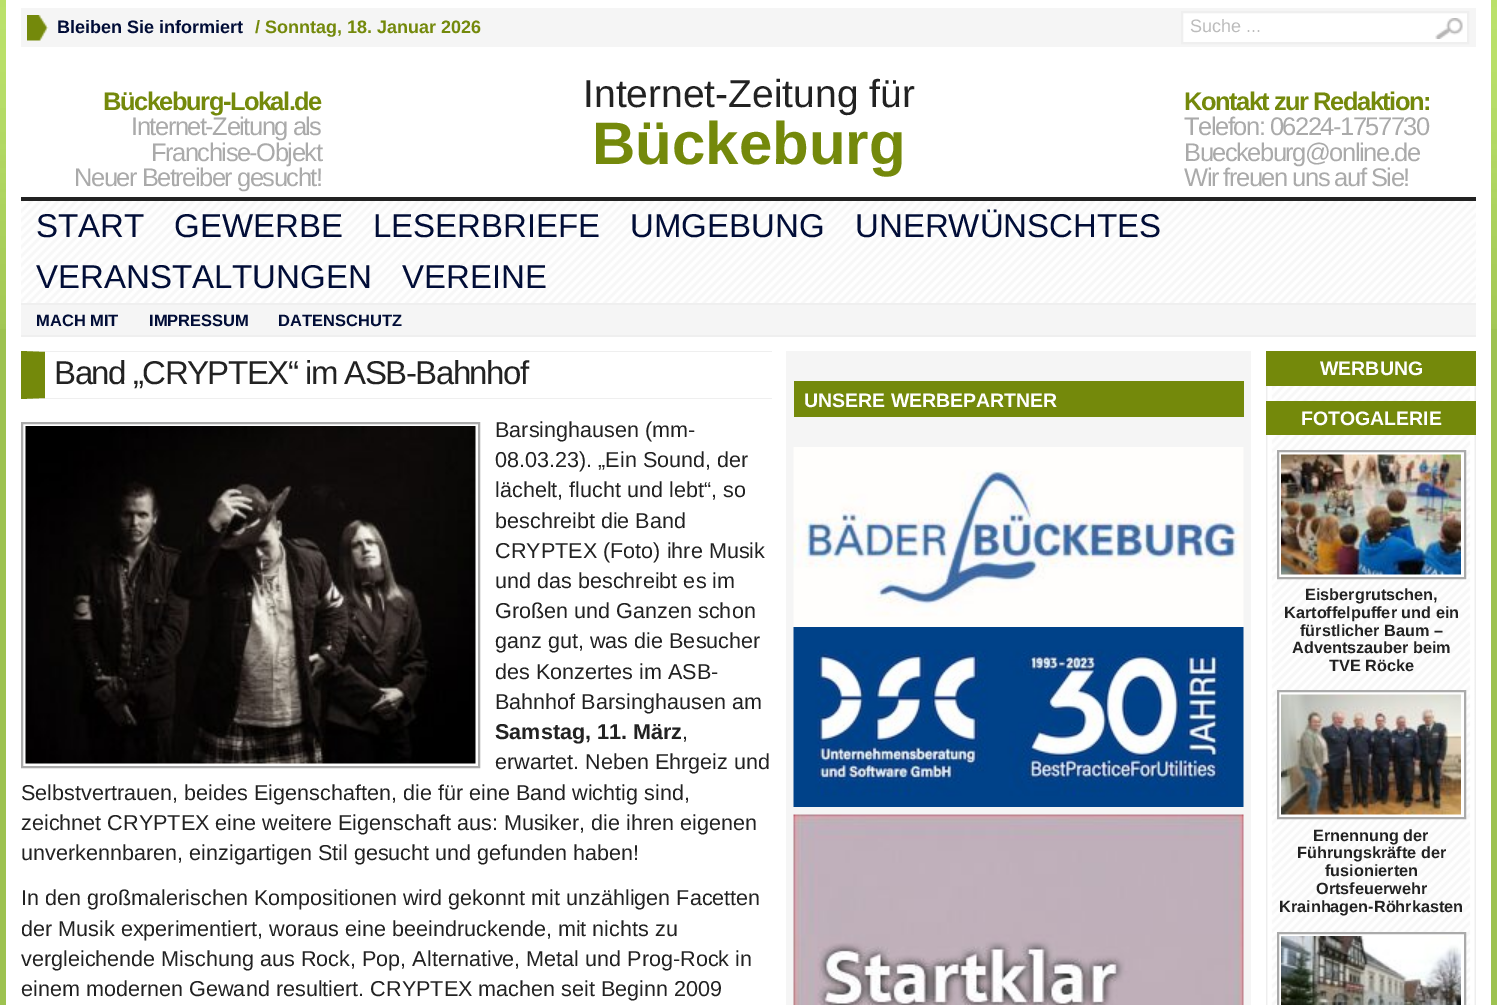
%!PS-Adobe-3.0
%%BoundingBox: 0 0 1497 1005
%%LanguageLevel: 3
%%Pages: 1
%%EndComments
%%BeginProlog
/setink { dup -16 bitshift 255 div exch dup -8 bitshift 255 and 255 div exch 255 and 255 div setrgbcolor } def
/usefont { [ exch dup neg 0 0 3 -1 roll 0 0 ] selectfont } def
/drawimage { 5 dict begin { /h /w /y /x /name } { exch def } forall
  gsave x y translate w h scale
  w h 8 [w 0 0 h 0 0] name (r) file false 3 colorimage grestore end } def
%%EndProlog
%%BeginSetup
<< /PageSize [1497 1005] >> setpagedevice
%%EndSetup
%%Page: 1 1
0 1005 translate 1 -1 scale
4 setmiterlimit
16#9DC250 setink
0 0 1497 1005 rectfill
(img1.raw) 0 0 1497 329 drawimage
16#FFFFFF setink
6 0 1485 1005 rectfill
16#F5F5F5 setink
21 8 1455 39 rectfill
(img2.raw) 27 15 22 26 drawimage
/LiberationSans-Bold 18 usefont
16#010D37 setink
57 33 moveto (Bleiben Sie informiert) show
16#74890B setink
255 33 moveto (/ Sonntag, 18. Januar 2026) show
16#FFFFFF setink
1182 12 moveto 1468 12 lineto 1468 43 lineto 1182 43 lineto closepath gsave fill grestore
16#EFEFEF setink
2 setlinewidth
stroke
/LiberationSans-Regular 18 usefont
16#BCBCBC setink
1190 32 moveto (Suche ...) show
(img3.raw) 1435 18 28 21 drawimage
16#222222 setink
21 197 1455 4 rectfill
/LiberationSans-Bold 25.5 usefont
16#74890B setink
103 110 moveto -1.5 0 (Bückeburg-Lokal.de) ashow
/LiberationSans-Regular 25.5 usefont
16#AAAAAA setink
131 135 moveto -1.5 0 (Internet-Zeitung als) ashow
151 161 moveto -1.5 0 (Franchise-Objekt) ashow
74 186 moveto -1.5 0 (Neuer Betreiber gesucht!) ashow
/LiberationSans-Regular 39 usefont
16#222222 setink
583 107 moveto (Internet-Zeitung für) show
/LiberationSans-Bold 60 usefont
16#74890B setink
592 164 moveto (Bückeburg) show
/LiberationSans-Bold 25.5 usefont
1184 110 moveto -1.5 0 (Kontakt zur Redaktion:) ashow
/LiberationSans-Regular 25.5 usefont
16#AAAAAA setink
1184 135 moveto -1.5 0 (Telefon: 06224-1757730) ashow
1184 161 moveto -1.5 0 (Bueckeburg@online.de) ashow
1184 186 moveto -1.5 0 (Wir freuen uns auf Sie!) ashow
(img4.raw) 21 201 1455 102 drawimage
16#EFEFEF setink
21 303 1455 2 rectfill
/LiberationSans-Regular 33 usefont
16#010D37 setink
[
    [(START) 36 237]
    [(GEWERBE) 174 237]
    [(LESERBRIEFE) 373 237]
    [(UMGEBUNG) 630 237]
    [(UNERWÜNSCHTES) 855 237]
    [(VERANSTALTUNGEN) 36 288]
    [(VEREINE) 402 288]
] { aload pop moveto show } forall
16#F5F5F5 setink
21 305 1455 30 rectfill
16#EFEFEF setink
21 335 1455 2 rectfill
/LiberationSans-Bold 16.5 usefont
16#010D37 setink
[
    [(MACH MIT) 36 326]
    [(IMPRESSUM) 149 326]
    [(DATENSCHUTZ) 278 326]
] { aload pop moveto show } forall
16#EFEFEF setink
21 351 moveto 772 351 lineto 772 352 lineto 45 352 lineto closepath fill
772 399 moveto 21 399 lineto 45 398 lineto 772 398 lineto closepath fill
16#74890B setink
21 399 moveto 21 351 lineto 45 352 lineto 45 398 lineto closepath fill
/LiberationSans-Regular 33 usefont
16#222222 setink
54 384 moveto -1.5 0 (Band „CRYPTEX“ im ASB-Bahnhof) ashow
16#AAAAAA setink
22 423 457 344 rectstroke
(img5.raw) 25 426 451 338 drawimage
/LiberationSans-Regular 21.6 usefont
16#222222 setink
[
    [(Barsinghausen \(mm-) 495 437]
    [(08.03.23\). „Ein Sound, der) 495 467]
    [(lächelt, flucht und lebt“, so) 495 497]
    [(beschreibt die Band) 495 528]
    [(CRYPTEX \(Foto\) ihre Musik) 495 558]
    [(und das beschreibt es im) 495 588]
    [(Großen und Ganzen schon) 495 618]
    [(ganz gut, was die Besucher) 495 648]
    [(des Konzertes im ASB-) 495 679]
    [(Bahnhof Barsinghausen am) 495 709]
] { aload pop moveto show } forall
/LiberationSans-Bold 21.6 usefont
495 739 moveto (Samstag, 11. März) show
/LiberationSans-Regular 21.6 usefont
[
    [(,) 682 739]
    [(erwartet. Neben Ehrgeiz und) 495 769]
    [(Selbstvertrauen, beides Eigenschaften, die für eine Band wichtig sind,) 21 800]
    [(zeichnet CRYPTEX eine weitere Eigenschaft aus: Musiker, die ihren eigenen) 21 830]
    [(unverkennbaren, einzigartigen Stil gesucht und gefunden haben!) 21 860]
    [(In den großmalerischen Kompositionen wird gekonnt mit unzähligen Facetten) 21 905]
    [(der Musik experimentiert, woraus eine beeindruckende, mit nichts zu) 21 936]
    [(vergleichende Mischung aus Rock, Pop, Alternative, Metal und Prog-Rock in) 21 966]
    [(einem modernen Gewand resultiert. CRYPTEX machen seit Beginn 2009) 21 996]
] { aload pop moveto show } forall
16#F5F5F5 setink
786 351 465 654 rectfill
16#74890B setink
794 381 450 36 rectfill
/LiberationSans-Bold 19.5 usefont
16#FFFFFF setink
804 407 moveto (UNSERE WERBEPARTNER) show
(img6.raw) 793 447 451 180 drawimage
(img7.raw) 793 627 451 180 drawimage
(img8.raw) 793 814 451 191 drawimage
(img9.raw) 1266 386 210 619 drawimage
16#74890B setink
1266 351 210 35 rectfill
16#FFFFFF setink
1320 375 moveto (WERBUNG) show
16#74890B setink
1266 401 210 34 rectfill
16#FFFFFF setink
1301 425 moveto (FOTOGALERIE) show
1278 451 moveto 1465 451 lineto 1465 578 lineto 1278 578 lineto closepath gsave fill grestore
16#AAAAAA setink
stroke
(img10.raw) 1281 454 180 121 drawimage
/LiberationSans-Bold 16.25 usefont
16#222222 setink
[
    [(Eisbergrutschen,) 1305 600]
    [(Kartoffelpuffer und ein) 1284 618]
    [(fürstlicher Baum –) 1300 636]
    [(Adventszauber beim) 1292 653]
    [(TVE Röcke) 1329 671]
] { aload pop moveto show } forall
16#FFFFFF setink
1278 691 moveto 1465 691 lineto 1465 818 lineto 1278 818 lineto closepath gsave fill grestore
16#AAAAAA setink
stroke
(img11.raw) 1281 694 180 121 drawimage
16#222222 setink
[
    [(Ernennung der) 1313 841]
    [(Führungskräfte der) 1297 858]
    [(fusionierten) 1325 876]
    [(Ortsfeuerwehr) 1316 894]
    [(Krainhagen-Röhrkasten) 1279 912]
] { aload pop moveto show } forall
16#FFFFFF setink
1278 933 moveto 1465 933 lineto 1465 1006 lineto 1278 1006 lineto closepath gsave fill grestore
16#AAAAAA setink
stroke
(img12.raw) 1281 936 180 69 drawimage
showpage
%%EOF
